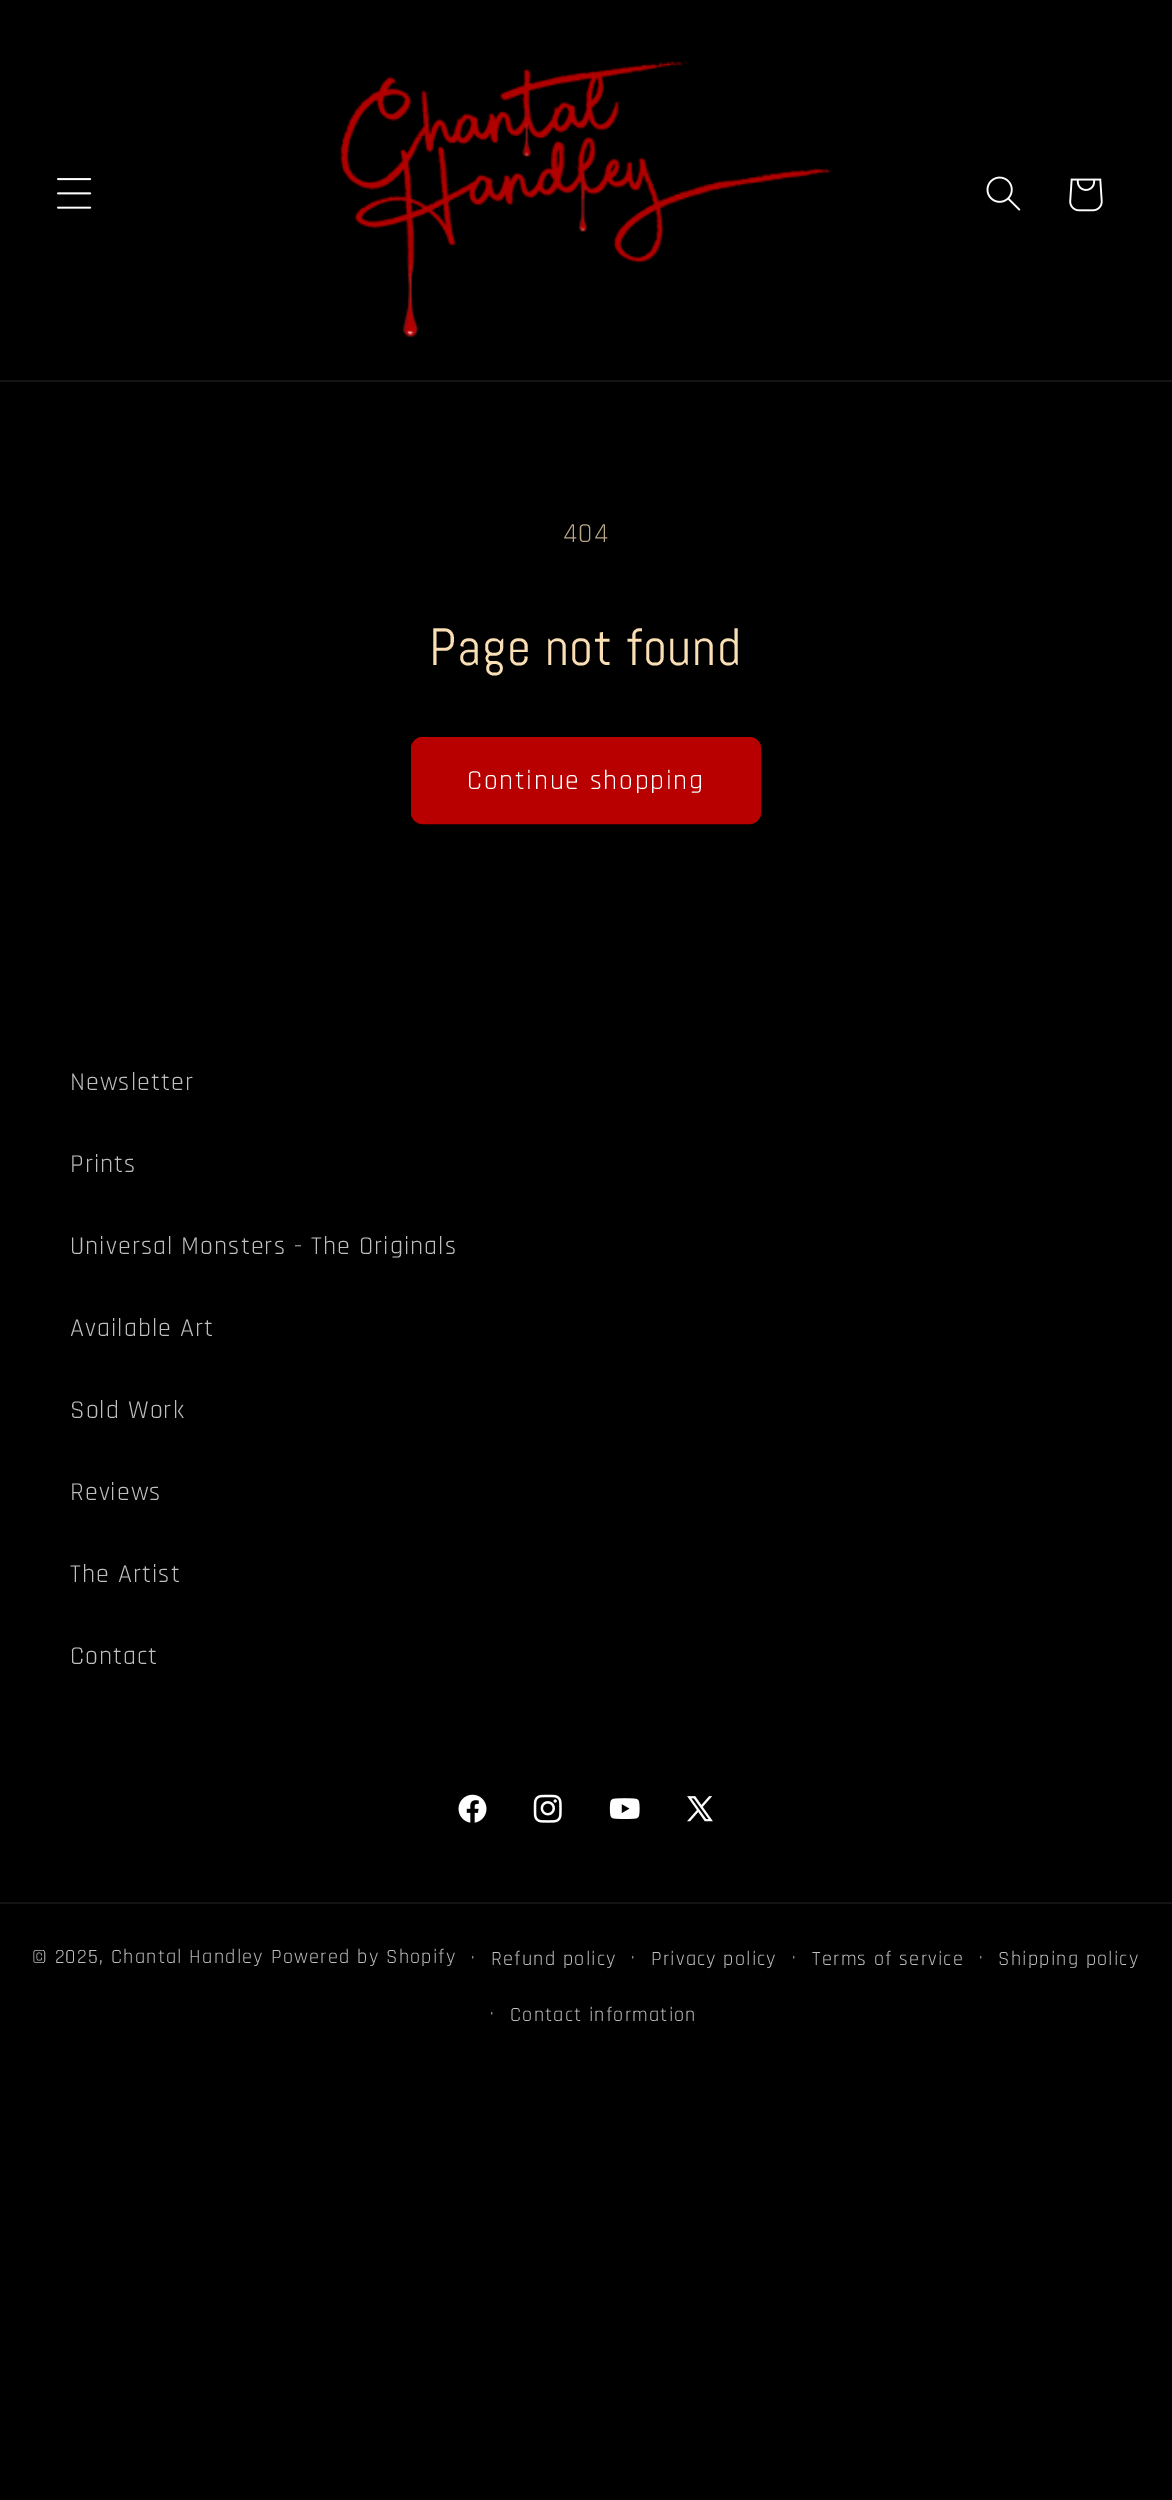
%!PS-Adobe-3.0
%%BoundingBox: 0 0 1172 2500
%%LanguageLevel: 3
%%Pages: 1
%%EndComments
%%BeginProlog
/setink { dup -16 bitshift 255 div exch dup -8 bitshift 255 and 255 div exch 255 and 255 div setrgbcolor } def
/usefont { [ exch dup neg 0 0 3 -1 roll 0 0 ] selectfont } def
/rrect { 5 dict begin { /r /h /w /y /x } { exch def } forall
  x r add y moveto x w add y 2 copy h add r arct x w add y h add x 1 index r arct
  x y h add x y r arct x y 2 copy exch w add exch r arct closepath end } def
/drawimage { 5 dict begin { /h /w /y /x /name } { exch def } forall
  gsave x y translate w h scale
  w h 8 [w 0 0 h 0 0] name (r) file false 3 colorimage grestore end } def
%%EndProlog
%%BeginSetup
<< /PageSize [1172 2500] >> setpagedevice
%%EndSetup
%%Page: 1 1
0 2500 translate 1 -1 scale
4 setmiterlimit
16#000000 setink
0 0 1172 2500 rectfill
16#141414 setink
0 380 1172 2 rectfill
(img1.raw) 57 178 35 31 drawimage
(img2.raw) 340 60 491 278 drawimage
(img3.raw) 986 176 35 35 drawimage
(img4.raw) 1069 178 34 34 drawimage
/Rajdhani-Regular 27.5 usefont
16#BCA788 setink
563 542 moveto 1.1 0 (404) ashow
/Abel-Regular 52.5 usefont
16#FADFB5 setink
429 665 moveto 1 0 (Page not found) ashow
16#B80000 setink
411 737 350 87 12 rrect fill
2 setlinewidth
412 738 348 85 11 rrect stroke
/Rajdhani-Regular 27.5 usefont
16#FFFFFF setink
467 789 moveto 1.8 0 (Continue shopping) ashow
/Rajdhani-Regular 25.75 usefont
16#BFBFBF setink
70 1090 moveto 1.1 0 (Newsletter) ashow
70 1172 moveto 1.1 0 (Prints) ashow
70 1254 moveto 1.1 0 (Universal Monsters - The Originals) ashow
70 1336 moveto 1.1 0 (Available Art) ashow
70 1418 moveto 1.1 0 (Sold Work) ashow
70 1500 moveto 1.1 0 (Reviews) ashow
70 1582 moveto 1.1 0 (The Artist) ashow
70 1664 moveto 1.1 0 (Contact) ashow
(img5.raw) 458 1794 29 29 drawimage
(img6.raw) 533 1794 29 29 drawimage
(img7.raw) 609 1798 31 21 drawimage
(img8.raw) 687 1796 26 26 drawimage
16#141414 setink
0 1902 1172 2 rectfill
/Rajdhani-Regular 20.25 usefont
16#BFBFBF setink
32 1963 moveto 1.25 0 (© 2025, Chantal Handley) ashow
271 1963 moveto 1.25 0 (Powered by Shopify) ashow
/Rajdhani-Regular 18 usefont
471 1963 moveto 1.25 0 (·) ashow
/Rajdhani-Regular 20.25 usefont
491 1965 moveto 1.25 0 (Refund policy) ashow
/Rajdhani-Regular 18 usefont
631 1963 moveto 1.25 0 (·) ashow
/Rajdhani-Regular 20.25 usefont
651 1965 moveto 1.25 0 (Privacy policy) ashow
/Rajdhani-Regular 18 usefont
792 1963 moveto 1.25 0 (·) ashow
/Rajdhani-Regular 20.25 usefont
812 1965 moveto 1.25 0 (Terms of service) ashow
/Rajdhani-Regular 18 usefont
979 1963 moveto 1.25 0 (·) ashow
/Rajdhani-Regular 20.25 usefont
998 1965 moveto 1.25 0 (Shipping policy) ashow
/Rajdhani-Regular 18 usefont
490 2019 moveto 1.25 0 (·) ashow
/Rajdhani-Regular 20.25 usefont
510 2021 moveto 1.25 0 (Contact information) ashow
showpage
%%EOF
